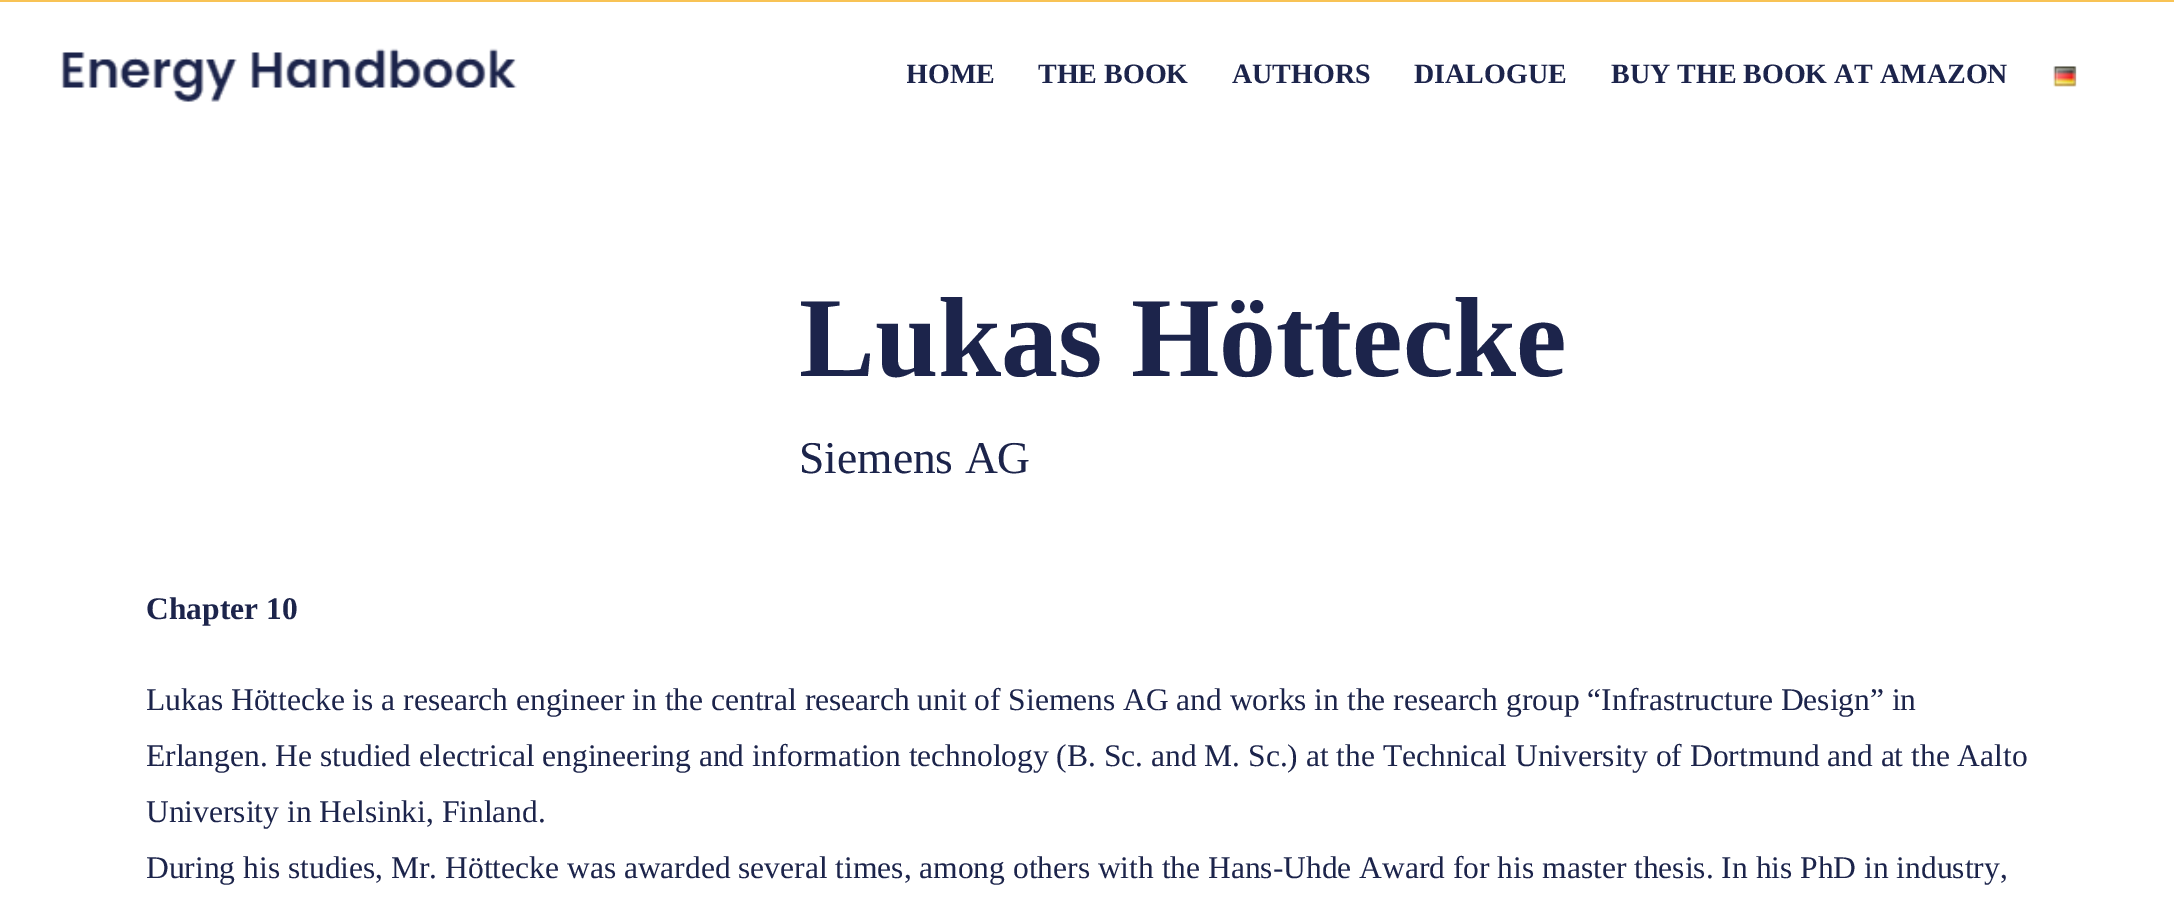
%!PS-Adobe-3.0
%%BoundingBox: 0 0 2174 915
%%LanguageLevel: 3
%%Pages: 1
%%EndComments
%%BeginProlog
/setink { dup -16 bitshift 255 div exch dup -8 bitshift 255 and 255 div exch 255 and 255 div setrgbcolor } def
/usefont { [ exch dup neg 0 0 3 -1 roll 0 0 ] selectfont } def
/drawimage { 5 dict begin { /h /w /y /x /name } { exch def } forall
  gsave x y translate w h scale
  w h 8 [w 0 0 h 0 0] name (r) file false 3 colorimage grestore end } def
%%EndProlog
%%BeginSetup
<< /PageSize [2174 915] >> setpagedevice
%%EndSetup
%%Page: 1 1
0 915 translate 1 -1 scale
4 setmiterlimit
16#FFFFFF setink
0 0 2174 915 rectfill
16#F8C355 setink
0 0 2174 2 rectfill
(img1.raw) 61 48 456 54 drawimage
gsave
907 2 1216 145 rectclip
/LiberationSerif-Bold 28 usefont
16#1C244B setink
906 83 moveto (HOME) show
grestore
/LiberationSerif-Bold 28 usefont
16#1C244B setink
[
    [(THE BOOK) 1038 83]
    [(AUTHORS) 1232 83]
    [(DIALOGUE) 1414 83]
    [(BUY THE BOOK AT AMAZON) 1611 83]
] { aload pop moveto show } forall
(img2.raw) 2053 66 24 21 drawimage
/LiberationSerif-Bold 113.75 usefont
799 376 moveto (Lukas Höttecke) show
/LiberationSerif-Regular 45.5 usefont
799 473 moveto (Siemens AG) show
/LiberationSerif-Bold 31.5 usefont
146 619 moveto (Chapter 10) show
/LiberationSerif-Regular 31.5 usefont
[
    [(Lukas Höttecke is a research engineer in the central research unit of Siemens AG and works in the research group “Infrastructure Design” in) 146 710]
    [(Erlangen. He studied electrical engineering and information technology \(B. Sc. and M. Sc.\) at the Technical University of Dortmund and at the Aalto) 146 766]
    [(University in Helsinki, Finland.) 146 822]
    [(During his studies, Mr. Höttecke was awarded several times, among others with the Hans-Uhde Award for his master thesis. In his PhD in industry,) 146 878]
] { aload pop moveto show } forall
showpage
%%EOF
